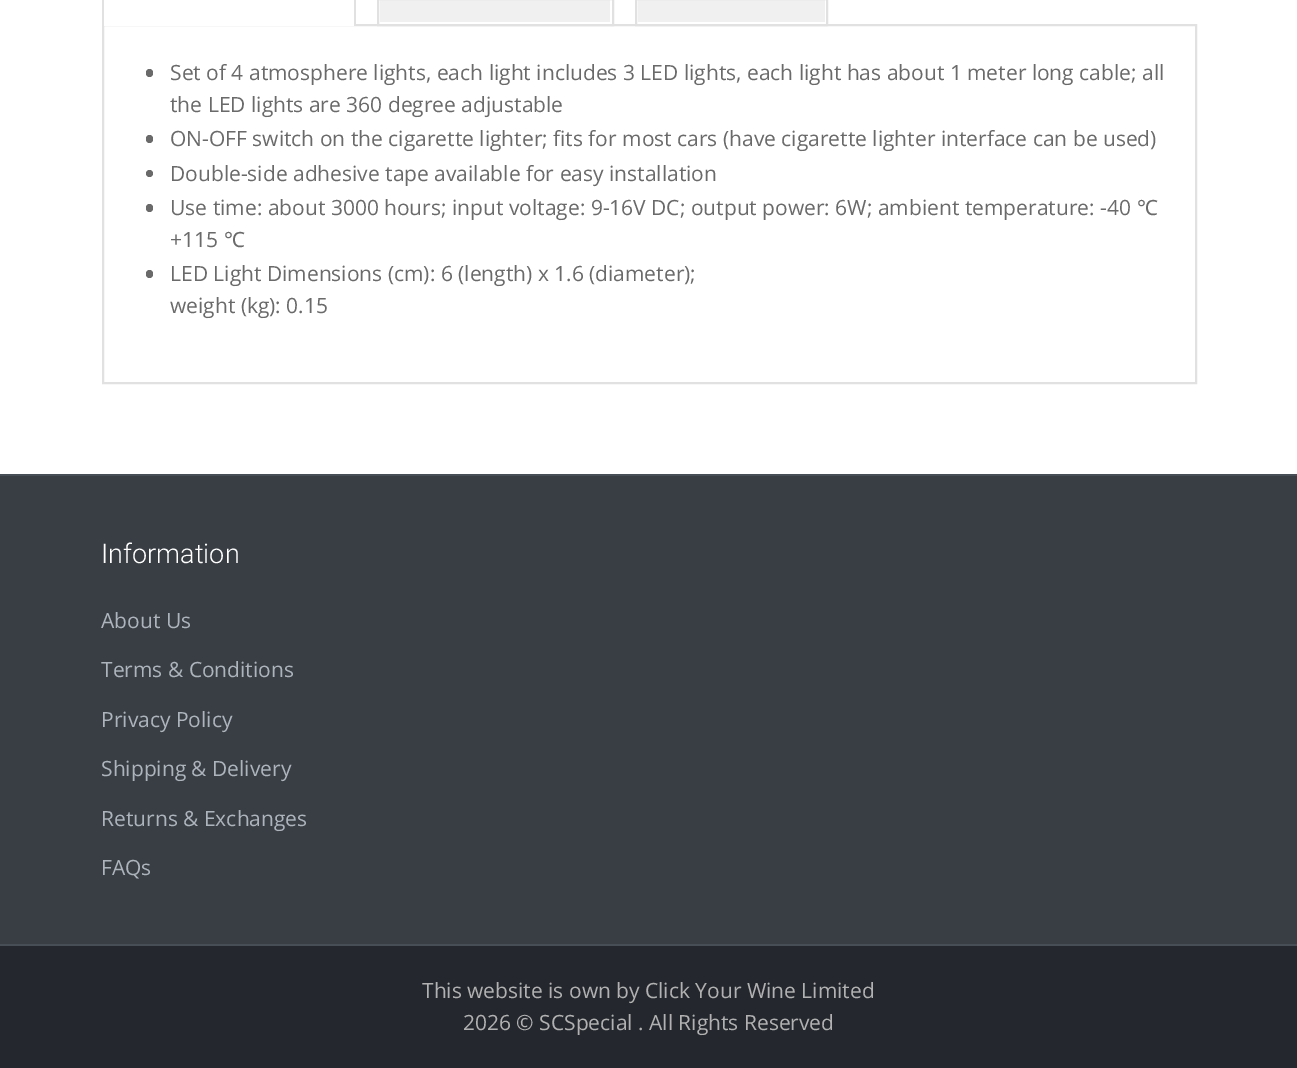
%!PS-Adobe-3.0
%%BoundingBox: 0 0 1297 1068
%%LanguageLevel: 3
%%Pages: 1
%%EndComments
%%BeginProlog
/setink { dup -16 bitshift 255 div exch dup -8 bitshift 255 and 255 div exch 255 and 255 div setrgbcolor } def
/usefont { [ exch dup neg 0 0 3 -1 roll 0 0 ] selectfont } def
/disc { newpath 0 360 arc closepath } def
/rrect { 5 dict begin { /r /h /w /y /x } { exch def } forall
  x r add y moveto x w add y 2 copy h add r arct x w add y h add x 1 index r arct
  x y h add x y r arct x y 2 copy exch w add exch r arct closepath end } def
%%EndProlog
%%BeginSetup
<< /PageSize [1297 1068] >> setpagedevice
%%EndSetup
%%Page: 1 1
0 1068 translate 1 -1 scale
4 setmiterlimit
16#FFFFFF setink
0 0 1297 1068 rectfill
16#E1E1E1 setink
2 setlinewidth
103 25 1093 358 rectstroke
[
    [104 24 250 2 16#FFFFFF]
    [354 0 2 26 16#E1E1E1]
    [102 0 2 26 16#E1E1E1]
    [380 0 230 22 16#F0F0F0]
] { aload pop setink rectfill } forall
16#E1E1E1 setink
378 -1 235 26 rectstroke
16#F0F0F0 setink
638 0 187 22 rectfill
16#E1E1E1 setink
636 -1 191 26 rectstroke
16#6A6A6A setink
146 69 7 8 3.5 rrect fill
/OpenSans-Regular 21 usefont
170 80 moveto (Set of 4 atmosphere lights, each light includes 3 LED lights, each light has about 1 meter long cable; all) show
170 112 moveto (the LED lights are 360 degree adjustable) show
146 135 7 8 3.5 rrect fill
170 146 moveto (ON-OFF switch on the cigarette lighter; fits for most cars \(have cigarette lighter interface can be used\)) show
149.5 173.5 3.5 disc fill
170 181 moveto (Double-side adhesive tape available for easy installation) show
146 204 7 8 3.5 rrect fill
170 215 moveto (Use time: about 3000 hours; input voltage: 9-16V DC; output power: 6W; ambient temperature: -40) show
/NotoSans-Regular 21 usefont
1137 215 moveto (℃) show
/OpenSans-Regular 21 usefont
170 247 moveto (+115) show
/NotoSans-Regular 21 usefont
224 247 moveto (℃) show
146 270 7 8 3.5 rrect fill
/OpenSans-Regular 21 usefont
170 281 moveto (LED Light Dimensions \(cm\): 6 \(length\) x 1.6 \(diameter\);) show
170 313 moveto (weight \(kg\): 0.15) show
16#393E45 setink
0 476 1297 468 rectfill
16#484E56 setink
0 474 1297 2 rectfill
/Roboto-Light 27 usefont
16#FFFFFF setink
101 563 moveto (Information) show
/OpenSans-Regular 21 usefont
16#AEB4BC setink
[
    [(About Us) 101 628]
    [(Terms & Conditions) 101 677]
    [(Privacy Policy) 101 727]
    [(Shipping & Delivery) 101 776]
    [(Returns & Exchanges) 101 826]
    [(FAQs) 101 875]
] { aload pop moveto show } forall
16#24282E setink
0 946 1297 122 rectfill
16#484E56 setink
0 944 1297 2 rectfill
16#B1B1B1 setink
422 998 moveto (This website is own by Click Your Wine Limited) show
463 1030 moveto (2026 © SCSpecial . All Rights Reserved) show
showpage
%%EOF
